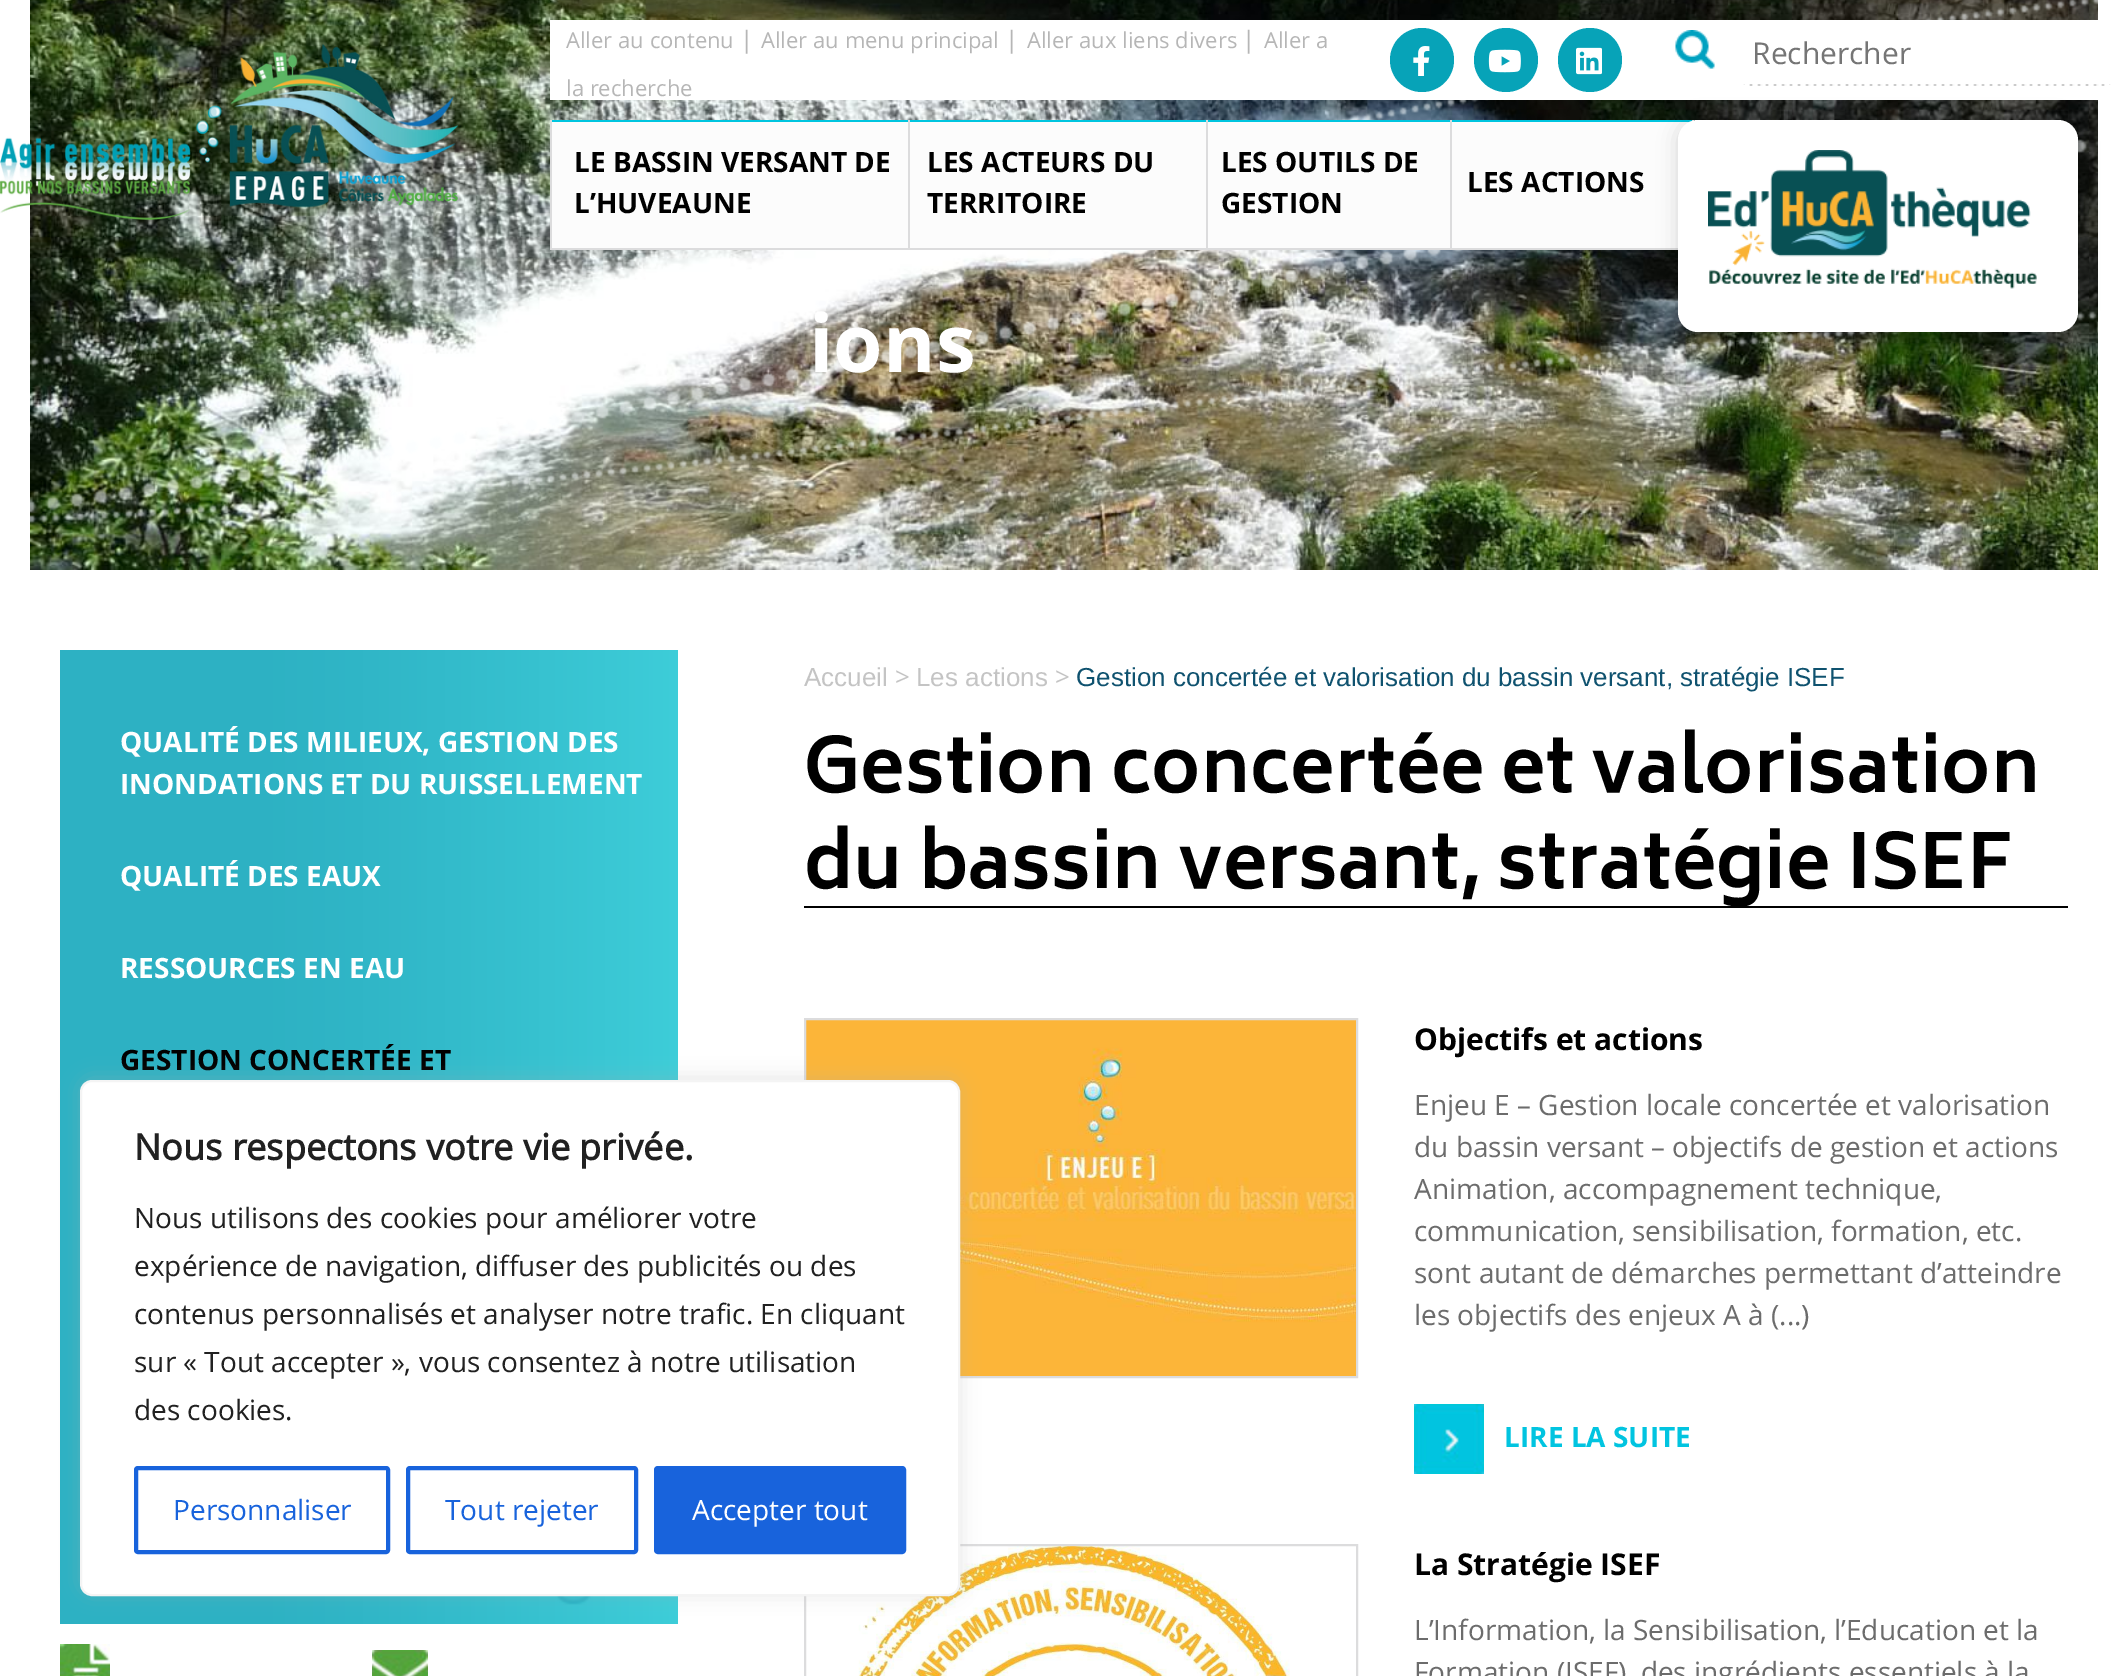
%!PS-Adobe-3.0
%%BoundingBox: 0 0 2128 1676
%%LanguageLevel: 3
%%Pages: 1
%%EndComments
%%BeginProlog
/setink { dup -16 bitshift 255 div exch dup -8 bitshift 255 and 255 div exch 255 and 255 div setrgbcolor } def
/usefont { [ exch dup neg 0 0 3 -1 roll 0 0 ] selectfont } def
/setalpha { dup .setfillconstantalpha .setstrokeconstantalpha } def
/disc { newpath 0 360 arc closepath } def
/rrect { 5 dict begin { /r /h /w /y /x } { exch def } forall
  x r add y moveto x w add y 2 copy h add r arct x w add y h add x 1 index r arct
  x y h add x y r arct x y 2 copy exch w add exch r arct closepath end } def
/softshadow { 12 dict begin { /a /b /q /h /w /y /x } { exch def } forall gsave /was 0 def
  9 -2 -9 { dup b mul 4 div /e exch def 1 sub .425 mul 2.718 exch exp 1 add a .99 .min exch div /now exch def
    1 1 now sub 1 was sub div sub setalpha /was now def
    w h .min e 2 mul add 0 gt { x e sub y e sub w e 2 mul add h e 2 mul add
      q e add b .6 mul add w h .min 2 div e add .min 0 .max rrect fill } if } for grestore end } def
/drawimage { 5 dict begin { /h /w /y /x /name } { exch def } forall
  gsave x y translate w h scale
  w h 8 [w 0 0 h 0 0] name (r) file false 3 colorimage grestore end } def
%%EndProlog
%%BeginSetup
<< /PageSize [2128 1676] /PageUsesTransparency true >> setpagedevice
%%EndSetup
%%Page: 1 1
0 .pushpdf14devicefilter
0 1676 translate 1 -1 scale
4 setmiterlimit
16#FFFFFF setink
0 0 2128 1676 rectfill
(img8.raw) 30 0 2068 570 drawimage
(img9.raw) 30 0 2068 523 drawimage
(img1.raw) 0 44 458 176 drawimage
550 20 1548 80 rectfill
/OpenSans-Regular 22 usefont
16#B6B6B6 setink
566 48 moveto (Aller au contenu) show
/OpenSans-Regular 24 usefont
740 48 moveto (|) show
/OpenSans-Regular 22 usefont
761 48 moveto (Aller au menu principal) show
/OpenSans-Regular 24 usefont
1005 48 moveto (|) show
/OpenSans-Regular 22 usefont
1027 48 moveto (Aller aux liens divers) show
/OpenSans-Regular 24 usefont
1242 48 moveto (|) show
/OpenSans-Regular 22 usefont
1264 48 moveto (Aller a) show
566 96 moveto (la recherche) show
16#07A3B8 setink
1422 60 32 disc fill
(img2.raw) 1413 46 17 30 drawimage
1506 60 32 disc fill
(img3.raw) 1488 49 33 24 drawimage
1590 60 32 disc fill
(img4.raw) 1576 47 26 28 drawimage
(img5.raw) 1675 30 40 39 drawimage
(img6.raw) 1743 84 368 2 drawimage
/OpenSans-Regular 30 usefont
16#757575 setink
1752 64 moveto (Rechercher) show
[
    [552 122 356 126 16#FCFCFC]
    [550 120 1144 2 16#00C5DF]
    [550 248 1128 2 16#DCDCDD]
    [550 120 2 130 16#DCDCDD]
] { aload pop setink rectfill } forall
/OpenSans-Bold 28 usefont
16#000000 setink
574 172 moveto (LE BASSIN VERSANT DE) show
574 213 moveto (L’HUVEAUNE) show
16#FCFCFC setink
910 122 296 126 rectfill
16#DCDCDD setink
908 120 2 130 rectfill
16#000000 setink
927 172 moveto (LES ACTEURS DU) show
927 213 moveto (TERRITOIRE) show
16#FCFCFC setink
1208 122 242 126 rectfill
16#DCDCDD setink
1206 120 2 130 rectfill
16#000000 setink
1221 172 moveto (LES OUTILS DE) show
1221 213 moveto (GESTION) show
[
    [1452 122 238 126 16#FCFCFC]
    [1692 120 2 1 16#DCDCDD]
    [1450 120 2 130 16#DCDCDD]
] { aload pop setink rectfill } forall
16#000000 setink
1467 192 moveto (LES ACTIONS) show
1678 120 400 212 20 10 0.15 softshadow
16#FFFFFF setink
1678 120 400 212 20 rrect fill
(img7.raw) 1708 150 329 139 drawimage
/OpenSans-Bold 80 usefont
809 372 moveto (ions) show
(img10.raw) 60 650 618 974 drawimage
/OpenSans-Bold 28 usefont
[
    [(QUALITÉ DES MILIEUX, GESTION DES) 120 752]
    [(INONDATIONS ET DU RUISSELLEMENT) 120 794]
    [(QUALITÉ DES EAUX) 120 886]
    [(RESSOURCES EN EAU) 120 978]
] { aload pop moveto show } forall
16#000000 setink
120 1070 moveto (GESTION CONCERTÉE ET) show
(img11.raw) 60 1644 50 32 drawimage
(img12.raw) 372 1650 56 26 drawimage
/LiberationSans-Regular 26 usefont
16#C4C4C4 setink
804 686 moveto (Accueil) show
/OpenSans-Regular 26 usefont
895 686 moveto (>) show
/LiberationSans-Regular 26 usefont
916 686 moveto (Les actions) show
/OpenSans-Regular 26 usefont
1055 686 moveto (>) show
/LiberationSans-Regular 26 usefont
16#0F526F setink
1076 686 moveto (Gestion concertée et valorisation du bassin versant, stratégie ISEF) show
/Biryani-Bold 74 usefont
16#000000 setink
804 792 moveto (Gestion concertée et valorisation) show
804 888 moveto (du bassin versant, stratégie ISEF) show
804 906 1264 2 rectfill
(img13.raw) 806 1020 550 356 drawimage
16#DCDCDD setink
2 setlinewidth
805 1019 552 358 rectstroke
/OpenSans-Bold 30 usefont
16#000000 setink
1414 1050 moveto (Objectifs et actions) show
/OpenSans-Regular 28 usefont
16#6C6C6C setink
[
    [(Enjeu E – Gestion locale concertée et valorisation) 1414 1115]
    [(du bassin versant – objectifs de gestion et actions) 1414 1157]
    [(Animation, accompagnement technique,) 1414 1199]
    [(communication, sensibilisation, formation, etc.) 1414 1241]
    [(sont autant de démarches permettant d’atteindre) 1414 1283]
    [(les objectifs des enjeux A à \(...\)) 1414 1325]
] { aload pop moveto show } forall
(img14.raw) 1414 1404 70 70 drawimage
/OpenSans-Bold 28 usefont
16#01C4E0 setink
1504 1447 moveto (LIRE LA SUITE) show
(img15.raw) 858 1546 432 130 drawimage
16#DCDCDD setink
805 1545 552 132 rectstroke
/OpenSans-Bold 30 usefont
16#000000 setink
1414 1575 moveto (La Stratégie ISEF) show
/OpenSans-Regular 28 usefont
16#6C6C6C setink
1414 1640 moveto (L’Information, la Sensibilisation, l’Education et la) show
1414 1682 moveto (Formation \(ISEF\), des ingrédients essentiels à la) show
16#ACABAB setink
80 1078 880 516 12 10 0.3 softshadow
16#FFFFFF setink
81 1081 878 514 11 rrect gsave fill grestore
16#F4F4F4 setink
stroke
/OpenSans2-Bold 36 usefont
16#212121 setink
134 1160 moveto (Nous respectons votre vie privée.) show
/OpenSans-Regular 28 usefont
[
    [(Nous utilisons des cookies pour améliorer votre) 134 1228]
    [(expérience de navigation, diffuser des publicités ou des) 134 1276]
    [(contenus personnalisés et analyser notre trafic. En cliquant) 134 1324]
    [(sur « Tout accepter », vous consentez à notre utilisation) 134 1372]
    [(des cookies.) 134 1420]
] { aload pop moveto show } forall
16#1863DC setink
4 setlinewidth
136 1468 252 84 2 rrect stroke
173 1520 moveto (Personnaliser) show
408 1468 228 84 2 rrect stroke
445 1520 moveto (Tout rejeter) show
656 1468 248 84 2 rrect gsave fill grestore
stroke
16#FFFFFF setink
692 1520 moveto (Accepter tout) show
.poppdf14devicefilter showpage
%%EOF
